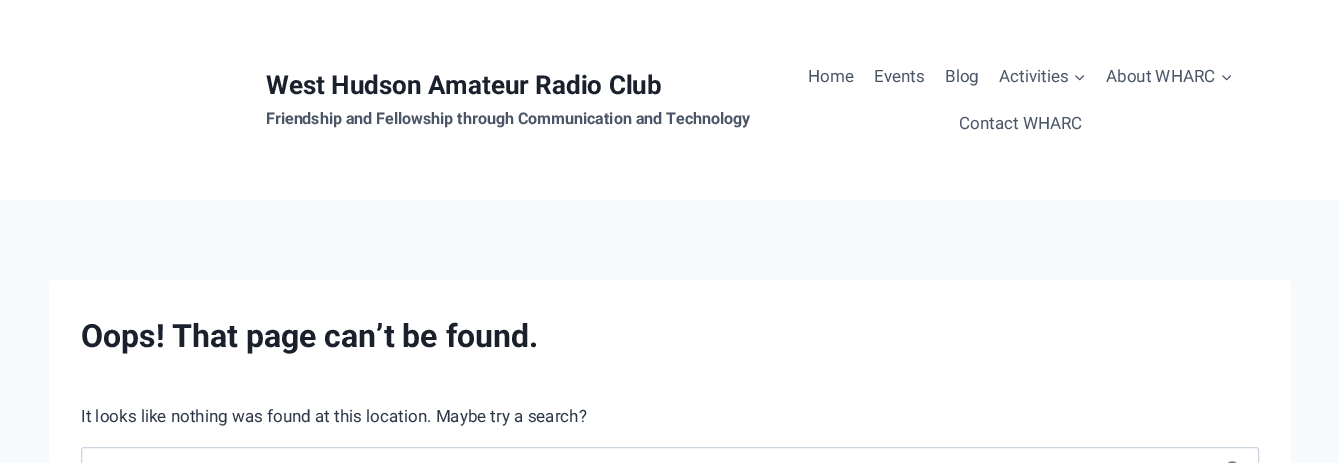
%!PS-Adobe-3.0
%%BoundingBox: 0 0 1339 463
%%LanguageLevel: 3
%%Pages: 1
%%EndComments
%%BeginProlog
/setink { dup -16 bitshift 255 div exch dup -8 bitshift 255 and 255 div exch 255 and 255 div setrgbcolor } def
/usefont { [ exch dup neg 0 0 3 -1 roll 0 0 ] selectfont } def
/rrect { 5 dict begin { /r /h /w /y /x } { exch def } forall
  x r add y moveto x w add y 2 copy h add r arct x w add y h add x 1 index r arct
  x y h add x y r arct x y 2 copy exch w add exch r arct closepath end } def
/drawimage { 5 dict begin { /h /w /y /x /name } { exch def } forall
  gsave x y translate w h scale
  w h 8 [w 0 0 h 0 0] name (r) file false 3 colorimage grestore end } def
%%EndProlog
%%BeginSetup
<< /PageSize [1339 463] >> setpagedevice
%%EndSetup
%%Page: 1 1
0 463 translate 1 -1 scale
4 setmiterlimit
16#F7FAFC setink
0 0 1339 463 rectfill
16#FFFFFF setink
0 0 1339 200 rectfill
/Roboto-Bold 26 usefont
16#1A202C setink
266 94 moveto (West Hudson Amateur Radio Club) show
/Roboto-Bold 16 usefont
16#4A5568 setink
266 124 moveto (Friendship and Fellowship through Communication and Technology) show
/Roboto-Regular 17 usefont
[
    [(Home) 808 82]
    [(Events) 874 82]
    [(Blog) 945 82]
    [(Activities) 999 82]
] { aload pop moveto show } forall
(img1.raw) 1075 75 10 6 drawimage
1106 82 moveto (About WHARC) show
(img1.raw) 1222 75 10 6 drawimage
959 129 moveto (Contact WHARC) show
16#FFFFFF setink
49 280 1242 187 4 rrect fill
/Roboto-Bold 32 usefont
16#1A202C setink
81 347 moveto (Oops! That page can’t be found.) show
/Roboto-Regular 17 usefont
16#2D3748 setink
81 422 moveto (It looks like nothing was found at this location. Maybe try a search?) show
16#CBD5E0 setink
81.5 447.5 1177 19 2.5 rrect stroke
(img2.raw) 1228 461 9 2 drawimage
showpage
%%EOF
